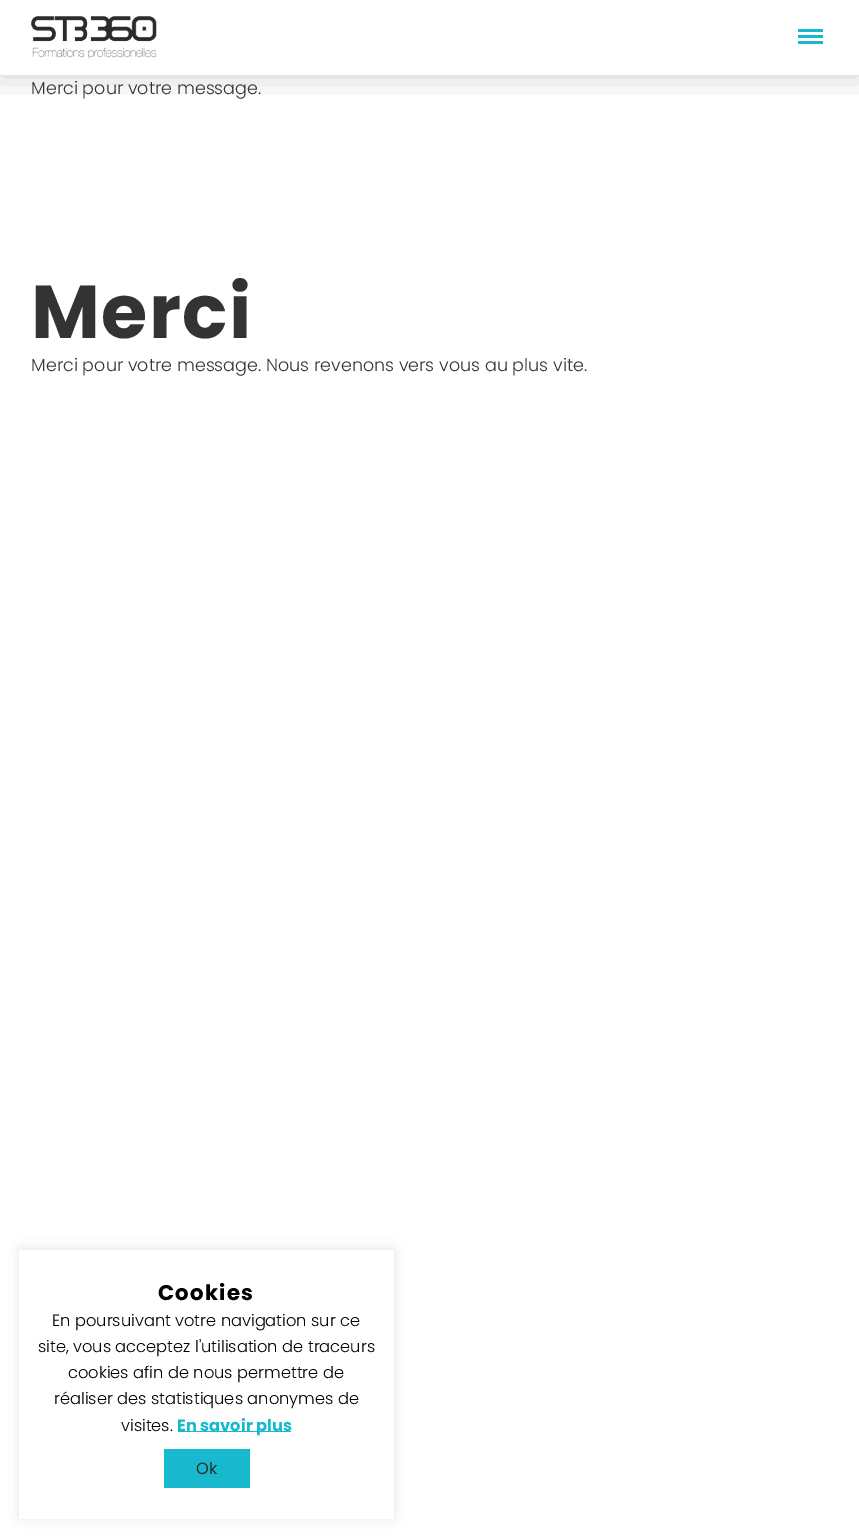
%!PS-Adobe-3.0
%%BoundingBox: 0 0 859 1537
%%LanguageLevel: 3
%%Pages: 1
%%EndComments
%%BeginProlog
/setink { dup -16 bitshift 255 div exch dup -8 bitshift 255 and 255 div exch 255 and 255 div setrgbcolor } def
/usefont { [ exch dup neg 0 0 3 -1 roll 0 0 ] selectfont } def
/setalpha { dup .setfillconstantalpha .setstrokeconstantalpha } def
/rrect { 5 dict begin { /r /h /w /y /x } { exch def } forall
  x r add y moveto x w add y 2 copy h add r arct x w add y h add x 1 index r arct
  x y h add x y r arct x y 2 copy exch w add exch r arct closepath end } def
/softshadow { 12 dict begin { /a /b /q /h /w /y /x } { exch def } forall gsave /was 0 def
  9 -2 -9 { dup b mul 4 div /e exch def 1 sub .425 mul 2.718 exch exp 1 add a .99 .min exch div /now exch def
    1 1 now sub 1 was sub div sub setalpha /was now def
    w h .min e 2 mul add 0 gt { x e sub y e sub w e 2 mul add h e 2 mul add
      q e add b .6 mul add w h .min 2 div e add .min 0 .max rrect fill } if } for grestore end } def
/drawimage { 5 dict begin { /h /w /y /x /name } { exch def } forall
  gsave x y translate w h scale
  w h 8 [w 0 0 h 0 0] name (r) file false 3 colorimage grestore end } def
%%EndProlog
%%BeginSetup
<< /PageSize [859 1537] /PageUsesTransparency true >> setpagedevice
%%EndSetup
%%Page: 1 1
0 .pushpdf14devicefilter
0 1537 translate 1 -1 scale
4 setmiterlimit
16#FFFFFF setink
0 0 859 1537 rectfill
gsave
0 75 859 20 rectclip
16#000000 setink
0 0 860 75 0 15.5 0.2 softshadow
grestore
(img1.raw) 31 16 126 43 drawimage
[
    [798 29 25 3 16#18B9CF]
    [798 35 25 3 16#18B9CF]
    [798 41 25 3 16#18B9CF]
] { aload pop setink rectfill } forall
/Poppins-Light 17.5 usefont
16#333333 setink
31 94 moveto (Merci pour votre message.) show
/Poppins-Bold 75 usefont
31 338 moveto 1.25 0 (Merci) ashow
/Poppins-Light 17.5 usefont
31 371 moveto (Merci pour votre message. Nous revenons vers vous au plus vite.) show
16#ACABAB setink
19 1249 375 269 0 6 0.3 softshadow
16#FFFFFF setink
19 1250 375 269 rectfill
/Poppins-Bold 21.25 usefont
16#000000 setink
158 1300 moveto 1.25 0 (Cookies) ashow
/Poppins-Light 16.25 usefont
[
    [(En poursuivant votre navigation sur ce) 52 1326]
    [(site, vous acceptez l'utilisation de traceurs) 38 1352]
    [(cookies afin de nous permettre de) 68 1378]
    [(réaliser des statistiques anonymes de) 54 1404]
    [(visites.) 121 1431]
] { aload pop moveto show } forall
16#18B9CF setink
178 1431 113 1 rectfill
/Poppins-Bold 16.25 usefont
177 1431 moveto (En savoir plus) show
164 1449 86 39 rectfill
/Poppins-Regular 16.25 usefont
16#2D2D2D setink
196 1474 moveto (Ok) show
.poppdf14devicefilter showpage
%%EOF
